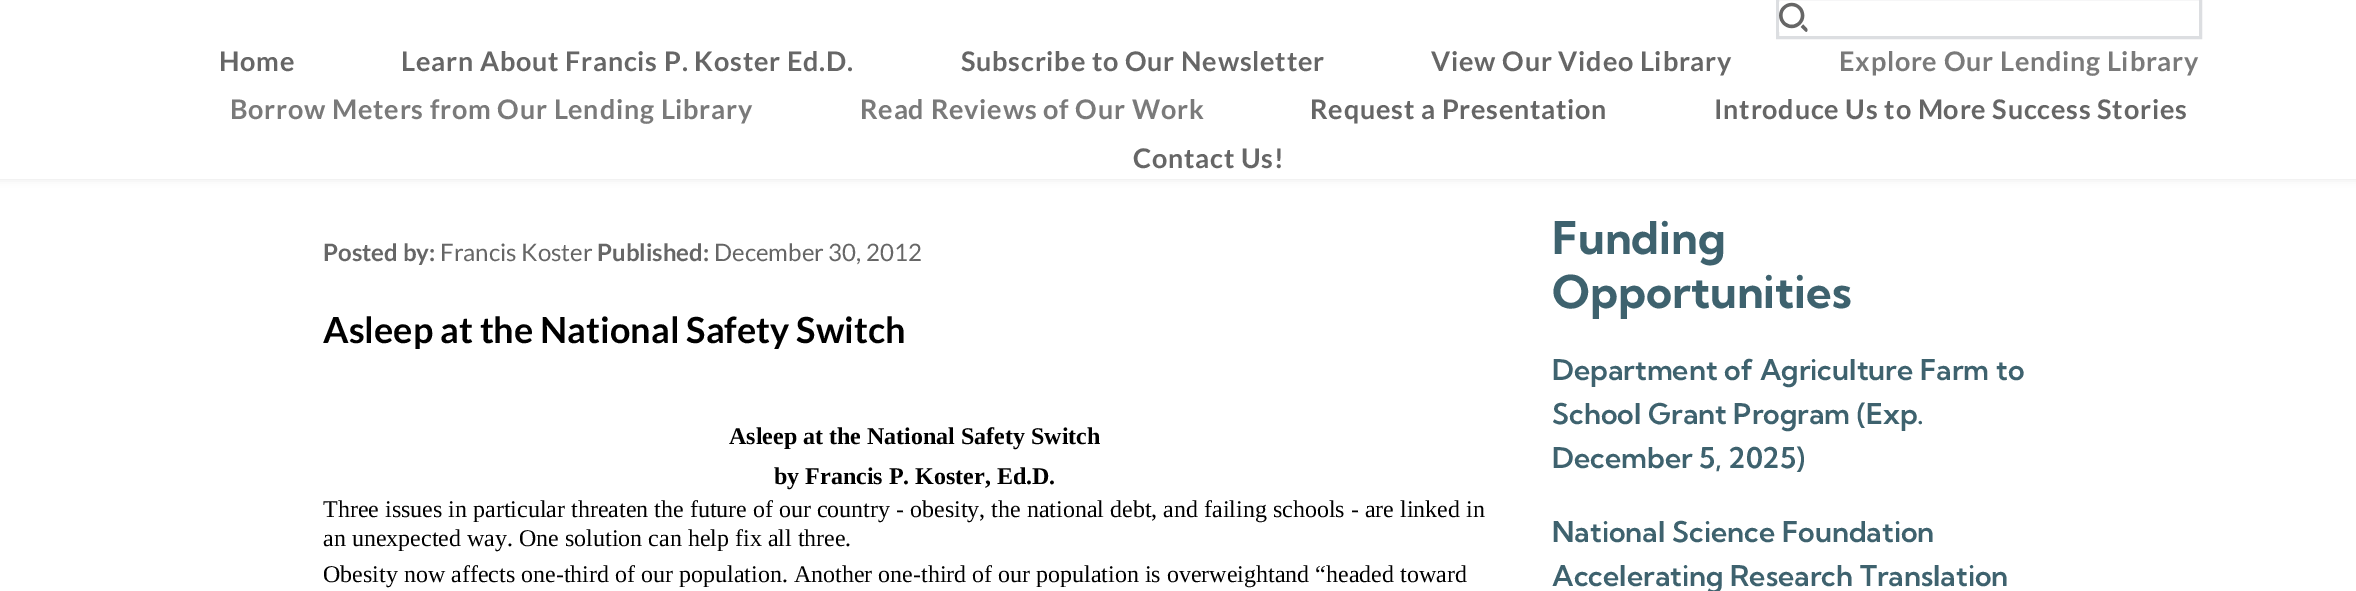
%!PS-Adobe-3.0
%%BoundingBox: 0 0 2356 591
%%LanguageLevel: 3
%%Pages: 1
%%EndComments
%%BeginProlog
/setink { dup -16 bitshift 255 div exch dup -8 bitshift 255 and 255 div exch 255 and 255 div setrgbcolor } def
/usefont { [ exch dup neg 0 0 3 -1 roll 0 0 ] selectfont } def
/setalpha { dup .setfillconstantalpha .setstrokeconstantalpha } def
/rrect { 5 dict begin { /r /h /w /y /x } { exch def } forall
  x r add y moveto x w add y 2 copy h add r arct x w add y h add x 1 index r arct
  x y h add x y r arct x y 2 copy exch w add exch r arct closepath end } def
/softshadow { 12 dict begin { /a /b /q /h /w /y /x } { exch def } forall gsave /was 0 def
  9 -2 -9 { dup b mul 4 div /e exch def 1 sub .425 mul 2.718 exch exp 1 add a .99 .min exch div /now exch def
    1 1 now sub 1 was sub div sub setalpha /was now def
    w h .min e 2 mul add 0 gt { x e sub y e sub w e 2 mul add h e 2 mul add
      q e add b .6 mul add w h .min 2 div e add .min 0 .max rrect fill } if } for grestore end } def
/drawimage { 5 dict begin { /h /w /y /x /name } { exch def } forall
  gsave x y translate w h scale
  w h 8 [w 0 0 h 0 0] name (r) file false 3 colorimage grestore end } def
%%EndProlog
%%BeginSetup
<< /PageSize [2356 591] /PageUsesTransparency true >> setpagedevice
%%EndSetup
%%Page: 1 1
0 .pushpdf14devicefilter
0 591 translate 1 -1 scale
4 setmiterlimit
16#FFFFFF setink
0 0 2356 591 rectfill
16#000000 setink
-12 -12 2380 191 0 4 0.1 softshadow
16#FFFFFF setink
0 0 2356 179 rectfill
16#DCDEE1 setink
3 setlinewidth
1777.5 -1.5 423 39 rectstroke
(img1.raw) 1779 2 29 30 drawimage
/Lato-Bold 27 usefont
16#666666 setink
219 71 moveto 0.75 0 (Home) ashow
401 71 moveto 0.75 0 (Learn About Francis P. Koster Ed.D.) ashow
961 71 moveto 0.75 0 (Subscribe to Our Newsletter) ashow
1431 71 moveto 0.75 0 (View Our Video Library) ashow
16#7A7A7A setink
1839 71 moveto 0.75 0 (Explore Our Lending Library) ashow
230 119 moveto 0.75 0 (Borrow Meters from Our Lending Library) ashow
860 119 moveto 0.75 0 (Read Reviews of Our Work) ashow
16#666666 setink
1310 119 moveto 0.75 0 (Request a Presentation) ashow
1714 119 moveto 0.75 0 (Introduce Us to More Success Stories) ashow
1133 168 moveto 0.75 0 (Contact Us!) ashow
/Lato-Bold 24 usefont
323 261 moveto (Posted by:) show
/Lato-Regular 24 usefont
440 261 moveto (Francis Koster) show
/Lato-Bold 24 usefont
597 261 moveto (Published:) show
/Lato-Regular 24 usefont
714 261 moveto (December 30, 2012) show
/Lato-Bold 36 usefont
16#000000 setink
323 343 moveto (Asleep at the National Safety Switch) show
/LiberationSerif-Bold 24 usefont
729 444 moveto (Asleep at the National Safety Switch) show
774 484 moveto (by Francis P. Koster, Ed.D.) show
/LiberationSerif-Regular 24 usefont
[
    [(Three issues in particular threaten the future of our country - obesity, the national debt, and failing schools - are linked in) 323 517]
    [(an unexpected way. One solution can help fix all three.) 323 546]
    [(Obesity now affects one-third of our population. Another one-third of our population is overweightand “headed toward) 323 582]
] { aload pop moveto show } forall
/KumbhSans-Bold 45 usefont
16#3E626E setink
1552 254 moveto (Funding) show
1552 308 moveto (Opportunities) show
/KumbhSans-SemiBold 28.5 usefont
[
    [(Department of Agriculture Farm to) 1552 380]
    [(School Grant Program \(Exp.) 1552 424]
    [(December 5, 2025\)) 1552 468]
    [(National Science Foundation) 1552 542]
    [(Accelerating Research Translation) 1552 586]
] { aload pop moveto show } forall
.poppdf14devicefilter showpage
%%EOF
